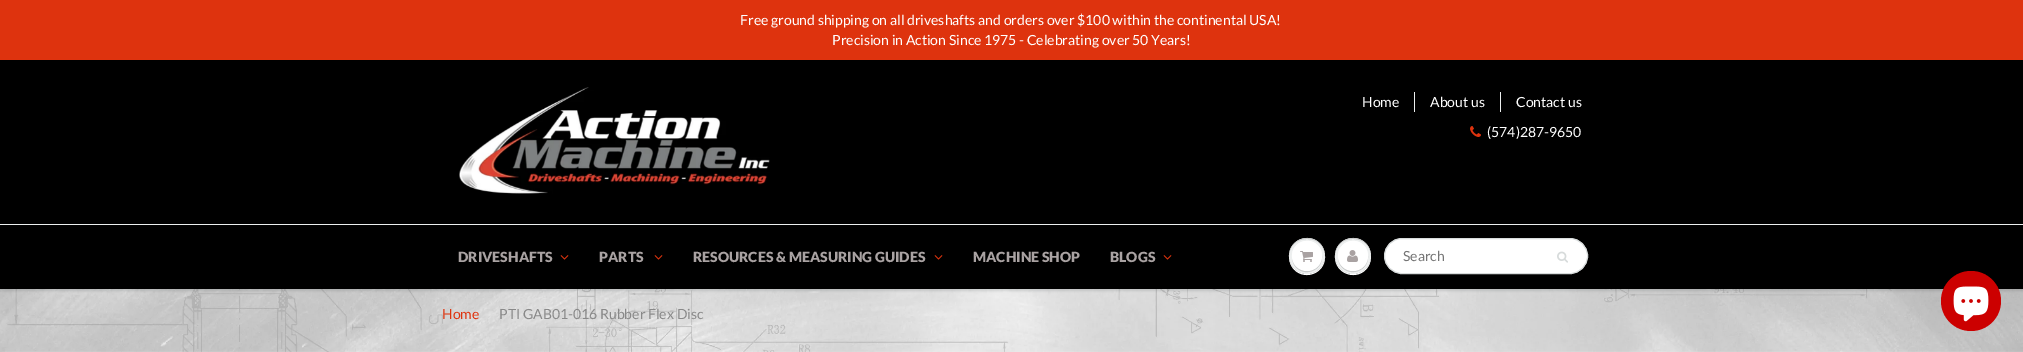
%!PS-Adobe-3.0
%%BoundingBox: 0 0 2023 352
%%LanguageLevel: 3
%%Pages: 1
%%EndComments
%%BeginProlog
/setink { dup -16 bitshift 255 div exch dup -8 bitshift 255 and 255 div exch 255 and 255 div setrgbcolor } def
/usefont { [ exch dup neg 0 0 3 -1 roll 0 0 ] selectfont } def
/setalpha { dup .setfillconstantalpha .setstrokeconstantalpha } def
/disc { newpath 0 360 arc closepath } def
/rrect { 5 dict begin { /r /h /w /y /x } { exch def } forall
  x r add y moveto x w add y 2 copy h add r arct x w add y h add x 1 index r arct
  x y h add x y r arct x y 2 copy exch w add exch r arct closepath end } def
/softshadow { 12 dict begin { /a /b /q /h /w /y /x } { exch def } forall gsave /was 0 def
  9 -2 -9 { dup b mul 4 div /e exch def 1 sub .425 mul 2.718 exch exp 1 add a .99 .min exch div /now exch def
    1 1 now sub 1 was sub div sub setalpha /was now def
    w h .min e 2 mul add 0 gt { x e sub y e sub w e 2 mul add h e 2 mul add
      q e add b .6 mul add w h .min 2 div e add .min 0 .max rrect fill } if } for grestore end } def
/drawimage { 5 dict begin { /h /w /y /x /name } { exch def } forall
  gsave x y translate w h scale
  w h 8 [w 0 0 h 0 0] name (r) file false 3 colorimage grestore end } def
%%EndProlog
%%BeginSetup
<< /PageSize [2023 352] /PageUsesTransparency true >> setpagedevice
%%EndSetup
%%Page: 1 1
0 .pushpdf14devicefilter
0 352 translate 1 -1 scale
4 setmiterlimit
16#FFFFFF setink
0 0 2023 352 rectfill
16#DE330E setink
0 0 2023 60 rectfill
/Lato-Regular 14 usefont
16#FFFFFF setink
740 25 moveto (Free ground shipping on all driveshafts and orders over $100 within the continental USA!) show
832 45 moveto (Precision in Action Since 1975 - Celebrating over 50 Years!) show
16#000000 setink
0 60 2023 164 rectfill
(img1.raw) 459 87 311 107 drawimage
16#FFFFFF setink
1362 107 moveto (Home) show
16#ECEFEF setink
1414 92 1 20 rectfill
16#FFFFFF setink
1430 107 moveto (About us) show
16#ECEFEF setink
1500 92 1 20 rectfill
16#FFFFFF setink
1516 107 moveto (Contact us) show
(img2.raw) 1470 126 11 11 drawimage
1487 137 moveto (\(574\)287-9650) show
(img7.raw) 0 289 2023 63 drawimage
16#0B191C setink
0 226 2023 65 0 1 0.12 softshadow
16#000000 setink
0 225 2023 64 rectfill
16#ECEFEF setink
0 224 2023 1 rectfill
/Lato-Black 14 usefont
16#A9A2A2 setink
458 262 moveto (DRIVESHAFTS) show
(img3.raw) 560 255 9 5 drawimage
599 262 moveto (PARTS) show
(img3.raw) 654 255 9 5 drawimage
693 262 moveto (RESOURCES & MEASURING GUIDES) show
(img3.raw) 934 255 9 5 drawimage
973 262 moveto (MACHINE SHOP) show
1110 262 moveto (BLOGS) show
(img3.raw) 1163 255 9 5 drawimage
16#FFFFFF setink
1325 256.5 moveto 1324.5 266 1317 274 1307 274 curveto 1297 274 1289.5 266 1289 256.5 curveto 1289 260 1290 264 1292 267 curveto 1302 282 1325.5 274.5 1325 256.5 curveto closepath fill
16#EDEFEF setink
1307 256 18 disc fill
16#C9CBCB setink
1307 239 moveto 1319 239 1325 247.5 1325 256.5 curveto 1325 253 1324 249 1322 246 curveto 1312 231 1288.5 238.5 1289 256.5 curveto 1289 247.5 1295 239 1307 239 curveto closepath fill
1322 256.5 moveto 1321.5 275.5 1292.5 275.5 1292 256.5 curveto 1292 259.5 1293 263 1294.5 265.5 curveto 1303 278 1322.5 271.5 1322 256.5 curveto closepath fill
16#FFFFFF setink
1307 256 15 disc fill
1307 242 moveto 1317 242 1322 249 1322 256.5 curveto 1322 253.5 1321 250 1319.5 247.5 curveto 1311 235 1291.5 241.5 1292 256.5 curveto 1292 249 1297 242 1307 242 curveto closepath fill
(img4.raw) 1300 251 13 11 drawimage
1371 256.5 moveto 1370.5 266 1363 274 1353 274 curveto 1343 274 1335.5 266 1335 256.5 curveto 1334.5 274.5 1358 282 1368 267 curveto 1370 264 1371 260 1371 256.5 curveto closepath fill
16#EDEFEF setink
1353 256 18 disc fill
16#C9CBCB setink
1353 239 moveto 1365 239 1371 247.5 1371 256.5 curveto 1371 253 1370 249 1368 246 curveto 1358 231 1334.5 238.5 1335 256.5 curveto 1335 247.5 1341 239 1353 239 curveto closepath fill
1368 256.5 moveto 1367.5 275.5 1338.5 275.5 1338 256.5 curveto 1338 259.5 1339 263 1340.5 265.5 curveto 1349 278 1368.5 271.5 1368 256.5 curveto closepath fill
16#FFFFFF setink
1353 256 15 disc fill
1353 242 moveto 1363 242 1368 249 1368 256.5 curveto 1368 253.5 1367 250 1365.5 247.5 curveto 1357 235 1337.5 241.5 1338 256.5 curveto 1338 249 1343 242 1353 242 curveto closepath fill
(img5.raw) 1347 250 11 12 drawimage
1384.5 238.5 203 35 17.5 rrect gsave fill grestore
16#D7DBDB setink
stroke
/Lato-Regular 14 usefont
16#757575 setink
1403 261 moveto (Search) show
(img6.raw) 1557 251 11 12 drawimage
16#DE330E setink
442 319 moveto (Home) show
16#898989 setink
499 319 moveto (PTI GAB01-016 Rubber Flex Disc) show
16#CC0000 setink
1971 301 30 disc fill
(img8.raw) 1953 286 36 36 drawimage
.poppdf14devicefilter showpage
%%EOF
